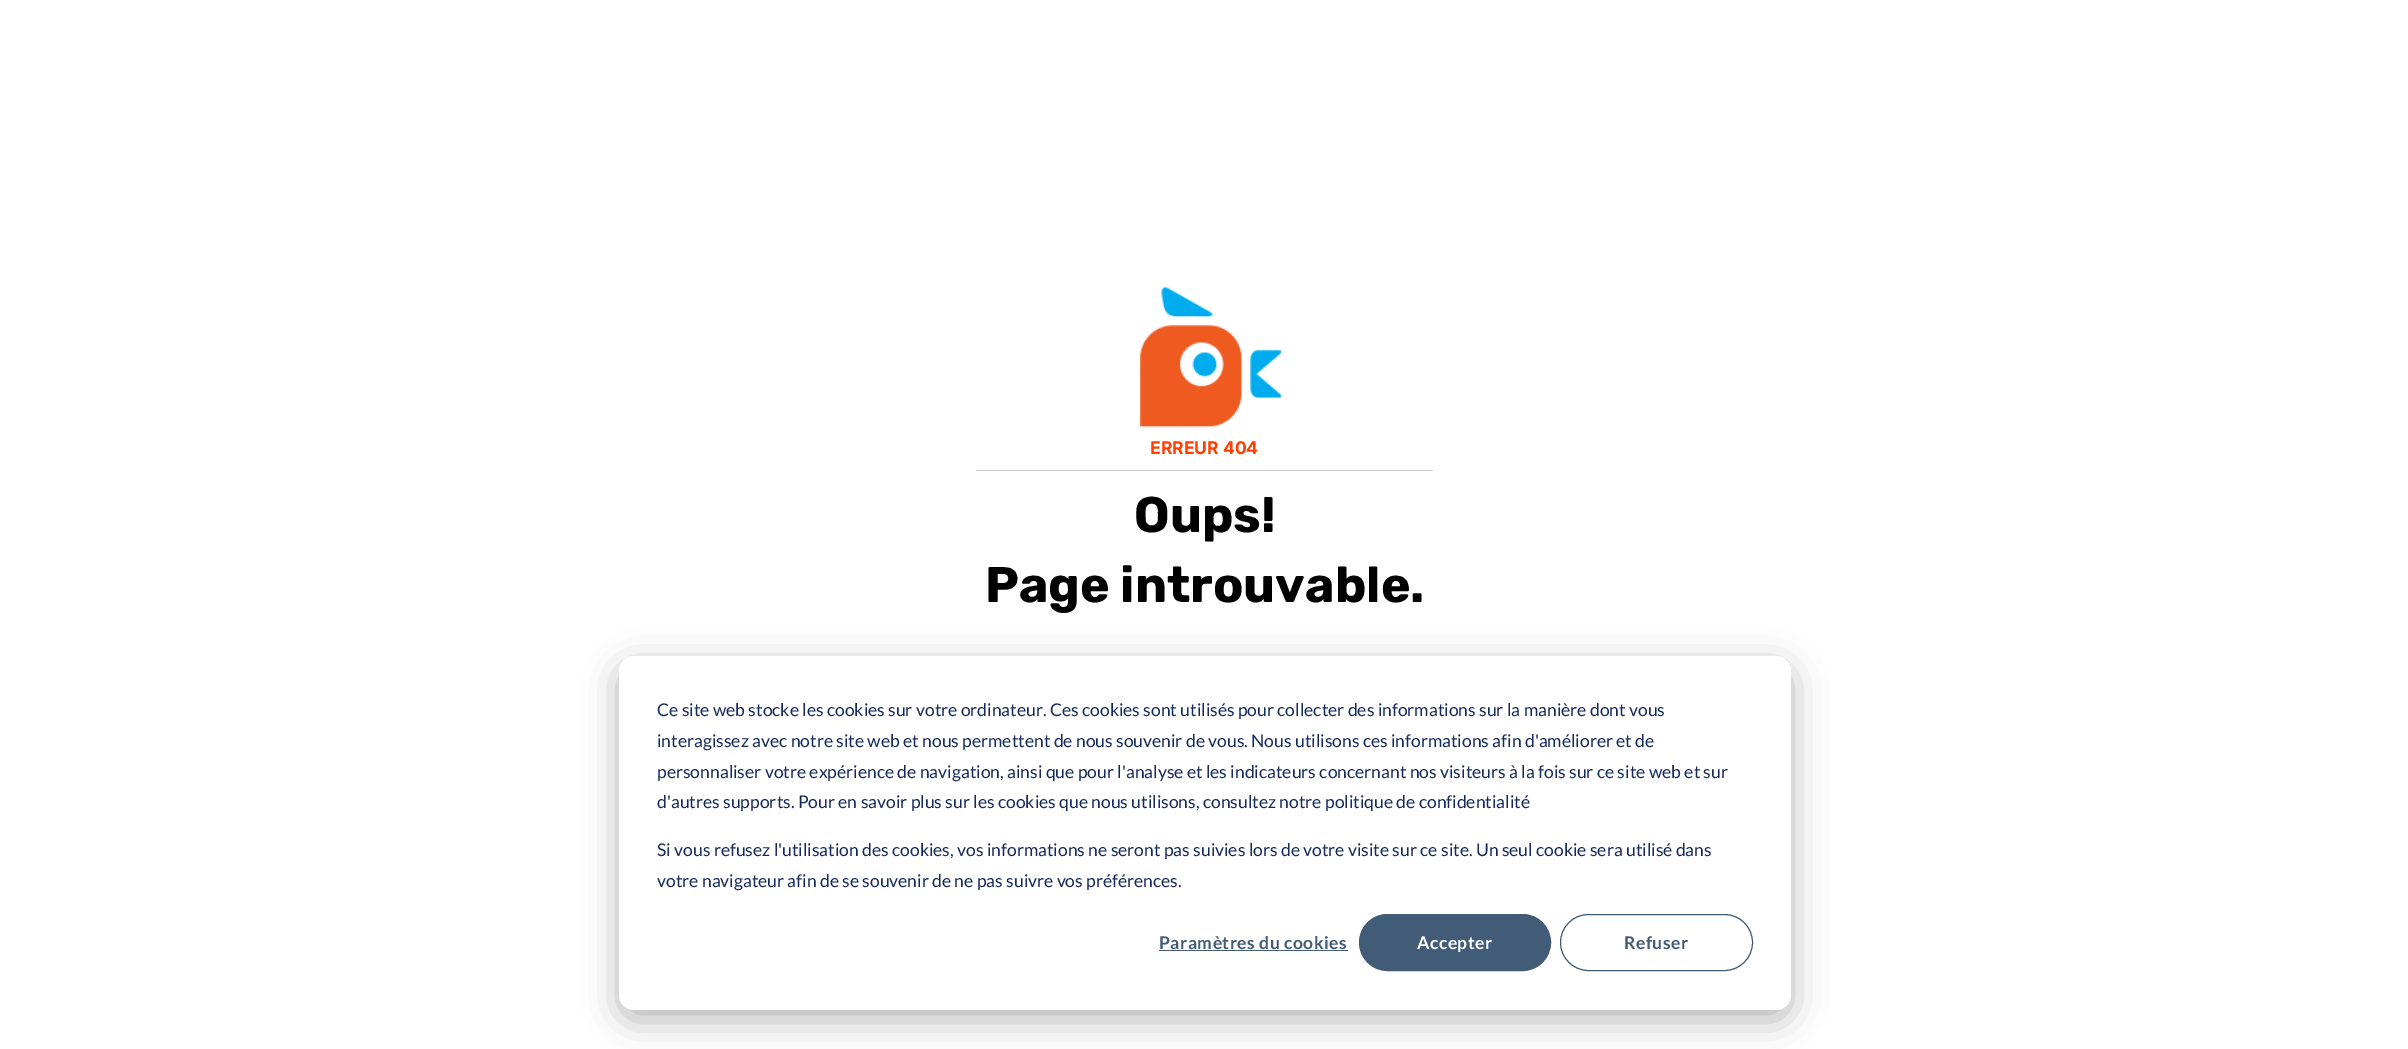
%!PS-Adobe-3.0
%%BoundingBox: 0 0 2408 1049
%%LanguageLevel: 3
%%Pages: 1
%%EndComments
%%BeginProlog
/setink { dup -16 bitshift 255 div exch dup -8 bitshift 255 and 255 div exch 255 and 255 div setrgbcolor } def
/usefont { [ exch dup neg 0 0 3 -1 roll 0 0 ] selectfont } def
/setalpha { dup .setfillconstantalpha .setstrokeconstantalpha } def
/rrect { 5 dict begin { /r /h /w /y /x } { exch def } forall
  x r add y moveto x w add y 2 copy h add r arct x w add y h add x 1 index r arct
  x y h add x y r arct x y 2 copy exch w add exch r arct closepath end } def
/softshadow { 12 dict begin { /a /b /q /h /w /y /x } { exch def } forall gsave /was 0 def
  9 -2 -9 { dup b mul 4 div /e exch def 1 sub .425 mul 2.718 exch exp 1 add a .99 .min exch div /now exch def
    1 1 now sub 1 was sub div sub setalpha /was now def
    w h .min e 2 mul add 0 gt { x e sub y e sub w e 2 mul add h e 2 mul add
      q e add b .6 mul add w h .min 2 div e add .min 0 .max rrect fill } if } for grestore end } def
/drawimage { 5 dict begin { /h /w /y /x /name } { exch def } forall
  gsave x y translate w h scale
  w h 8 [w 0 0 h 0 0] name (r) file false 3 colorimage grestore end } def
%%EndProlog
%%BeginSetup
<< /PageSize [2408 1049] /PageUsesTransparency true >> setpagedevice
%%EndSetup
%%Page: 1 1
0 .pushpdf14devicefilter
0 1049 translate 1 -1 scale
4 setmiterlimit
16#FFFFFF setink
0 0 2408 1049 rectfill
(img1.raw) 1139 287 143 141 drawimage
/Inter-Bold 17.5 usefont
16#FF3E00 setink
1150 454 moveto (ERREUR 404) show
16#CCCCCC setink
976 470 457 1 rectfill
/Rubik-Bold 50 usefont
16#000000 setink
1134 532 moveto (Oups!) show
985 602 moveto (Page introuvable.) show
619 666 1172 354 15 17.5 0.28 softshadow
16#FFFFFF setink
619 656 1172 354 15 rrect fill
/Lato-Regular 17.5 usefont
16#15295A setink
[
    [(Ce site web stocke les cookies sur votre ordinateur. Ces cookies sont utilisés pour collecter des informations sur la manière dont vous) 657 716]
    [(interagissez avec notre site web et nous permettent de nous souvenir de vous. Nous utilisons ces informations afin d'améliorer et de) 657 747]
    [(personnaliser votre expérience de navigation, ainsi que pour l'analyse et les indicateurs concernant nos visiteurs à la fois sur ce site web et sur) 657 778]
    [(d'autres supports. Pour en savoir plus sur les cookies que nous utilisons, consultez notre politique de confidentialité) 657 808]
    [(Si vous refusez l'utilisation des cookies, vos informations ne seront pas suivies lors de votre visite sur ce site. Un seul cookie sera utilisé dans) 657 856]
    [(votre navigateur afin de se souvenir de ne pas suivre vos préférences.) 657 887]
] { aload pop moveto show } forall
/Lato-Bold 17.5 usefont
16#425B76 setink
1159 949 moveto 0.5 0 (Paramètres du cookies) ashow
1159 950 189 1 rectfill
1359.5 914.5 191 56 28 rrect gsave fill grestore
stroke
16#FFFFFF setink
1417 949 moveto 0.5 0 (Accepter) ashow
16#425B76 setink
1560.5 914.5 192 56 28 rrect stroke
1624 949 moveto 0.5 0 (Refuser) ashow
.poppdf14devicefilter showpage
%%EOF
